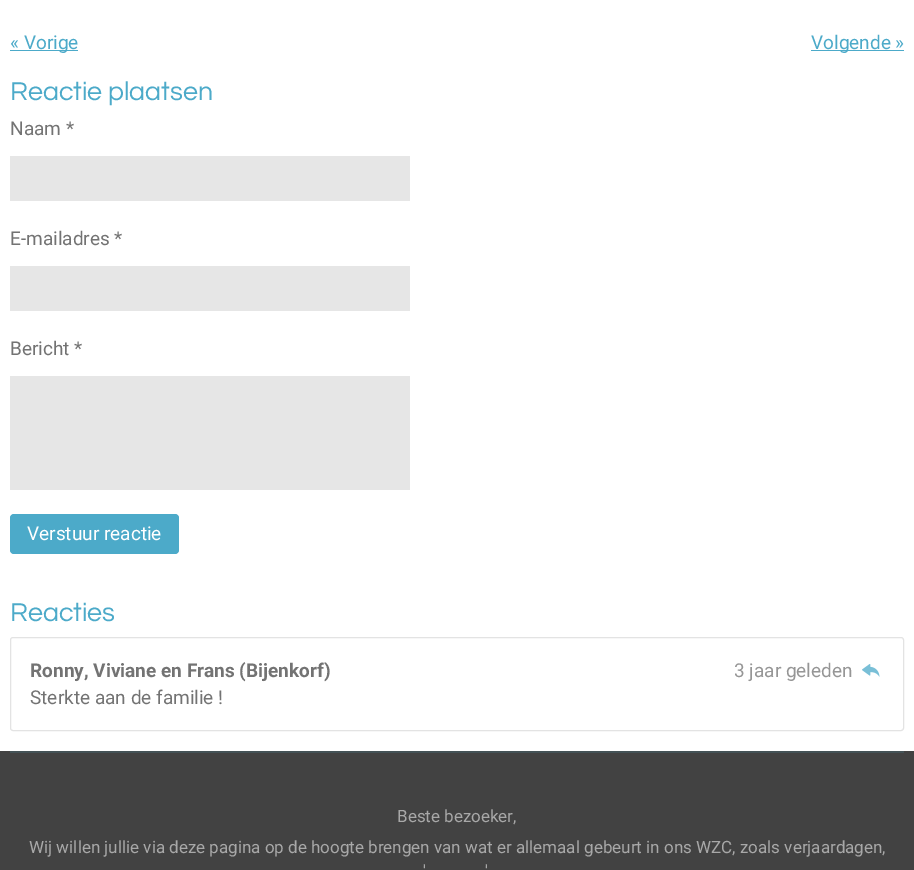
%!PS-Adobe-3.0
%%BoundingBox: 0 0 914 870
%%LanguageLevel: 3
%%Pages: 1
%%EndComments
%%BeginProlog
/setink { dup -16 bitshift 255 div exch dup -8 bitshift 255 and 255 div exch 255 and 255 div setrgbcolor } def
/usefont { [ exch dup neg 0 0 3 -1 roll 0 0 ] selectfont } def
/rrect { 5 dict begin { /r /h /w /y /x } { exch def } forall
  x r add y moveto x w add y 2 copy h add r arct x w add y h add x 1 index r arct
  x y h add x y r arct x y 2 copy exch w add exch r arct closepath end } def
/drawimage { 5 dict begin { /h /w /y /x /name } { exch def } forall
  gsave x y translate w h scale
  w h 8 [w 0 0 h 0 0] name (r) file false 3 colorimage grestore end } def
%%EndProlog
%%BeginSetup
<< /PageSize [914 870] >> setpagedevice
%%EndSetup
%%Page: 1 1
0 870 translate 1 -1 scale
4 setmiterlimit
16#FFFFFF setink
0 0 914 870 rectfill
16#4CAAC9 setink
10 50 68 1 rectfill
/Roboto-Regular 19 usefont
10 49 moveto (« Vorige) show
811 50 93 1 rectfill
811 49 moveto (Volgende ») show
/Questrial-Regular 26.75 usefont
10 100 moveto (Reactie plaatsen) show
/Roboto-Regular 19 usefont
16#737373 setink
10 135 moveto (Naam *) show
16#E6E6E6 setink
10 156 400 45 rectfill
16#737373 setink
10 245 moveto (E-mailadres *) show
16#E6E6E6 setink
10 266 400 45 rectfill
16#737373 setink
10 355 moveto (Bericht *) show
16#E6E6E6 setink
10 376 400 114 rectfill
16#4CAAC9 setink
10 514 169 40 4 rrect fill
16#FFFFFF setink
27 540 moveto (Verstuur reactie) show
/Questrial-Regular 26.75 usefont
16#4CAAC9 setink
10 621 moveto (Reacties) show
16#E3E3E3 setink
10.5 637.5 893 93 2.5 rrect stroke
/Roboto-Bold 19 usefont
16#737373 setink
30 677 moveto (Ronny, Viviane en Frans \(Bijenkorf\)) show
/Roboto-Regular 19 usefont
16#969696 setink
734 677 moveto (3 jaar geleden) show
(img1.raw) 862 664 18 13 drawimage
16#737373 setink
30 704 moveto (Sterkte aan de familie !) show
16#424242 setink
0 751 914 119 rectfill
16#445256 setink
10 751 894 2 rectfill
/Roboto-Regular 17 usefont
16#A8A8A8 setink
[
    [(Beste bezoeker,) 397 822]
    [(Wij willen jullie via deze pagina op de hoogte brengen van wat er allemaal gebeurt in ons WZC, zoals verjaardagen,) 29 853]
    [(') 423 877]
    [(') 485 877]
] { aload pop moveto show } forall
showpage
%%EOF
